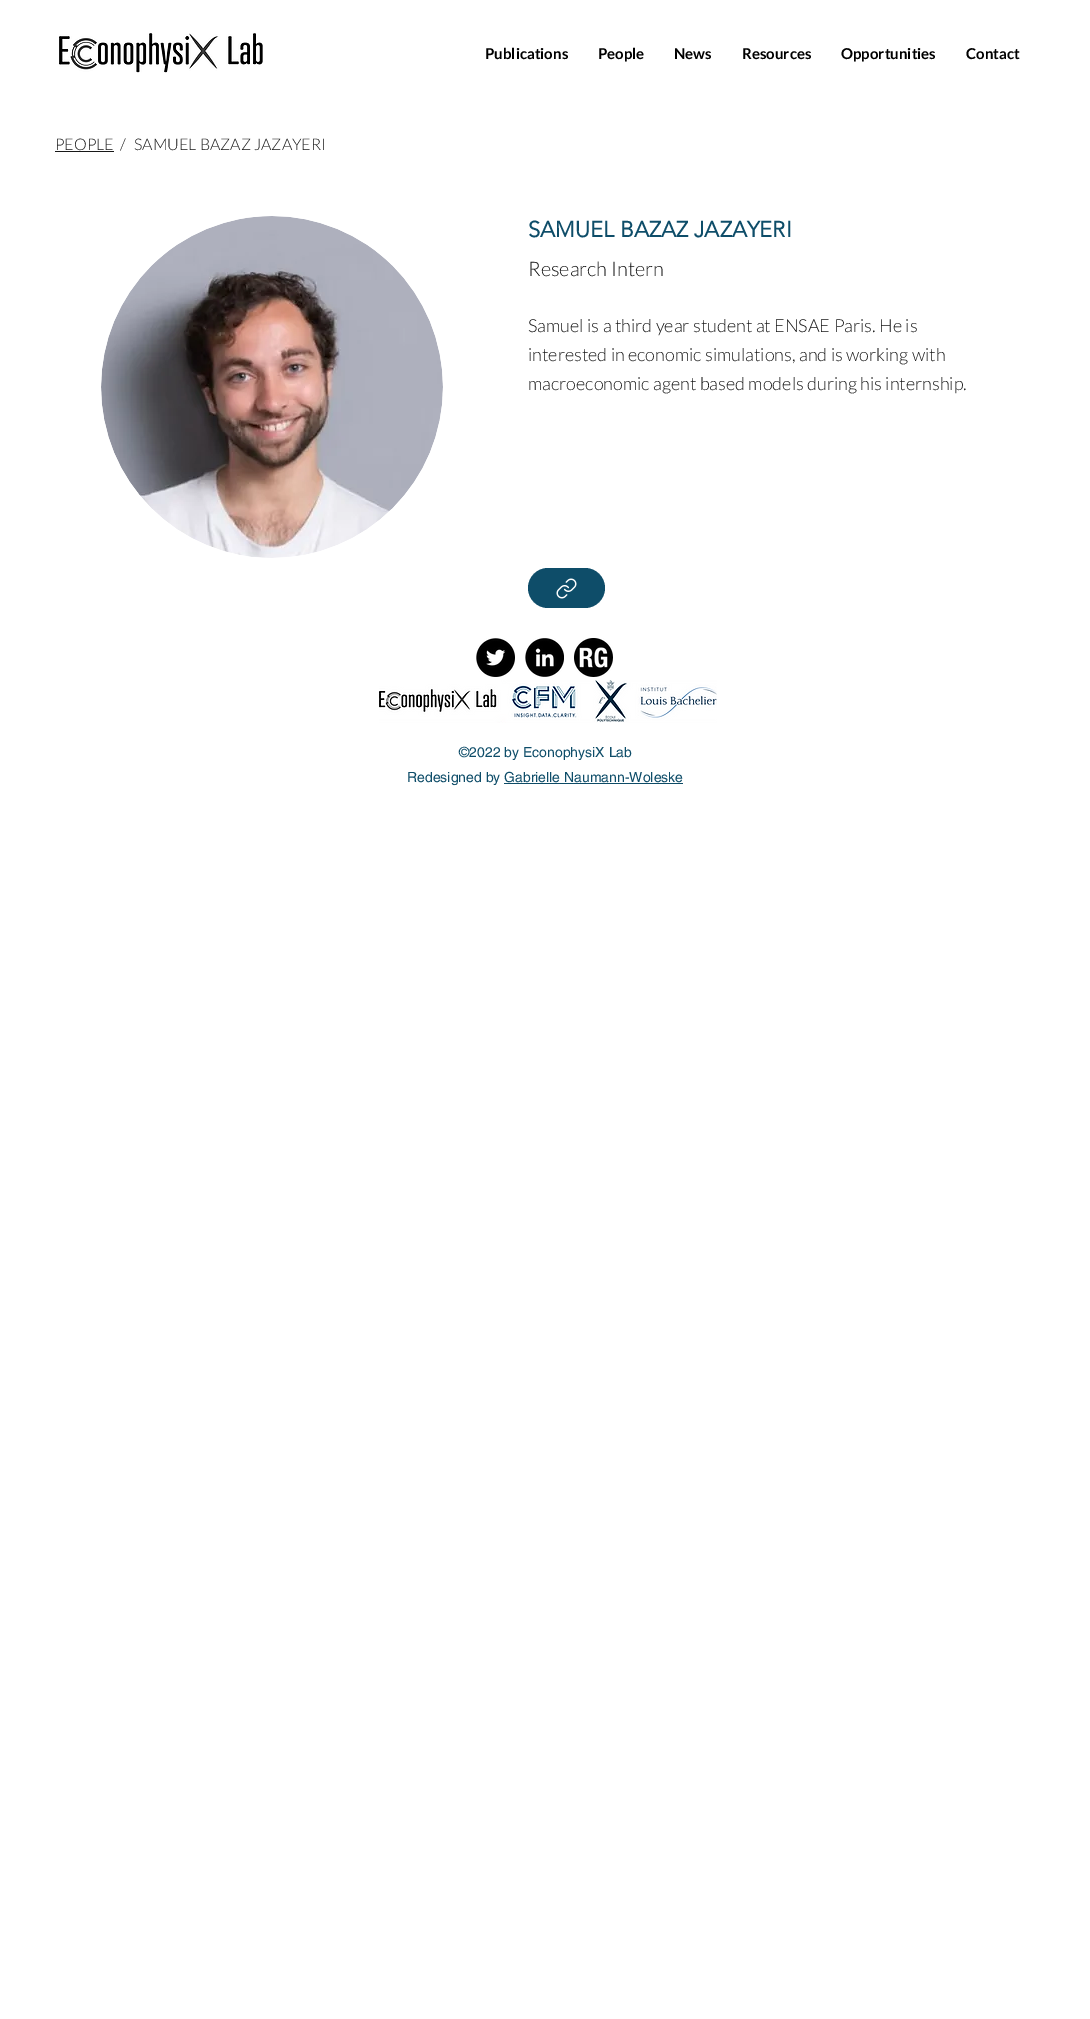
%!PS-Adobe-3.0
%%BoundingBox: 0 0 1090 2019
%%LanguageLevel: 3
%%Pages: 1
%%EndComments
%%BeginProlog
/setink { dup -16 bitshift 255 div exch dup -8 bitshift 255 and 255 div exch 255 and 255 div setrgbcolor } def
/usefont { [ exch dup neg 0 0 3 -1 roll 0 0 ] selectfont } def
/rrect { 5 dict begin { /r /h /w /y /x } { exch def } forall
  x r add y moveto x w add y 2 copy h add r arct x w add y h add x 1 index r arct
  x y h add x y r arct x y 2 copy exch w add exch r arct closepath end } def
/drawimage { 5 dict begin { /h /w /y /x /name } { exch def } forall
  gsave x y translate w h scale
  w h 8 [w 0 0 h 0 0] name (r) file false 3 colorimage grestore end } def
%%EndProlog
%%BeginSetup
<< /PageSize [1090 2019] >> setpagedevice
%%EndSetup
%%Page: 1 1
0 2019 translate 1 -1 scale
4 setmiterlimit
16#FFFFFF setink
0 0 1090 2019 rectfill
(img1.raw) 59 33 204 40 drawimage
/Lato-Bold 15 usefont
16#000000 setink
[
    [(Publications) 485 59]
    [(People) 598 59]
    [(News) 674 59]
    [(Resources) 742 59]
    [(Opportunities) 841 59]
    [(Contact) 966 59]
] { aload pop moveto show } forall
/Lato-Light 16 usefont
16#181818 setink
55 150 moveto (PEOPLE) show
55 151 59 1 rectfill
120 150 moveto (/) show
134 150 moveto (SAMUEL BAZAZ JAZAYERI) show
(img2.raw) 101 216 342 342 drawimage
/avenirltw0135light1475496-Bold 22 usefont
16#0E4D69 setink
528 237 moveto (SAMUEL BAZAZ JAZAYERI) show
/Lato-Light 20 usefont
16#181818 setink
528 276 moveto (Research Intern) show
/Lato-Light 18 usefont
[
    [(Samuel is a third year student at ENSAE Paris. He is) 528 332]
    [(interested in economic simulations, and is working with) 528 361]
    [(macroeconomic agent based models during his internship.) 528 390]
] { aload pop moveto show } forall
16#0E4D69 setink
528 568 77 40 20 rrect fill
(img3.raw) 556 578 21 21 drawimage
(img4.raw) 476 638 39 39 drawimage
(img5.raw) 525 638 39 39 drawimage
(img6.raw) 574 638 39 39 drawimage
(img7.raw) 379 680 338 43 drawimage
/helvetica-Regular 14 usefont
459 757 moveto (©2022 by EconophysiX Lab) show
407 782 moveto (Redesigned by Gabrielle Naumann-Woleske) show
16#0E4C67 setink
504 783 179 1 rectfill
showpage
%%EOF
